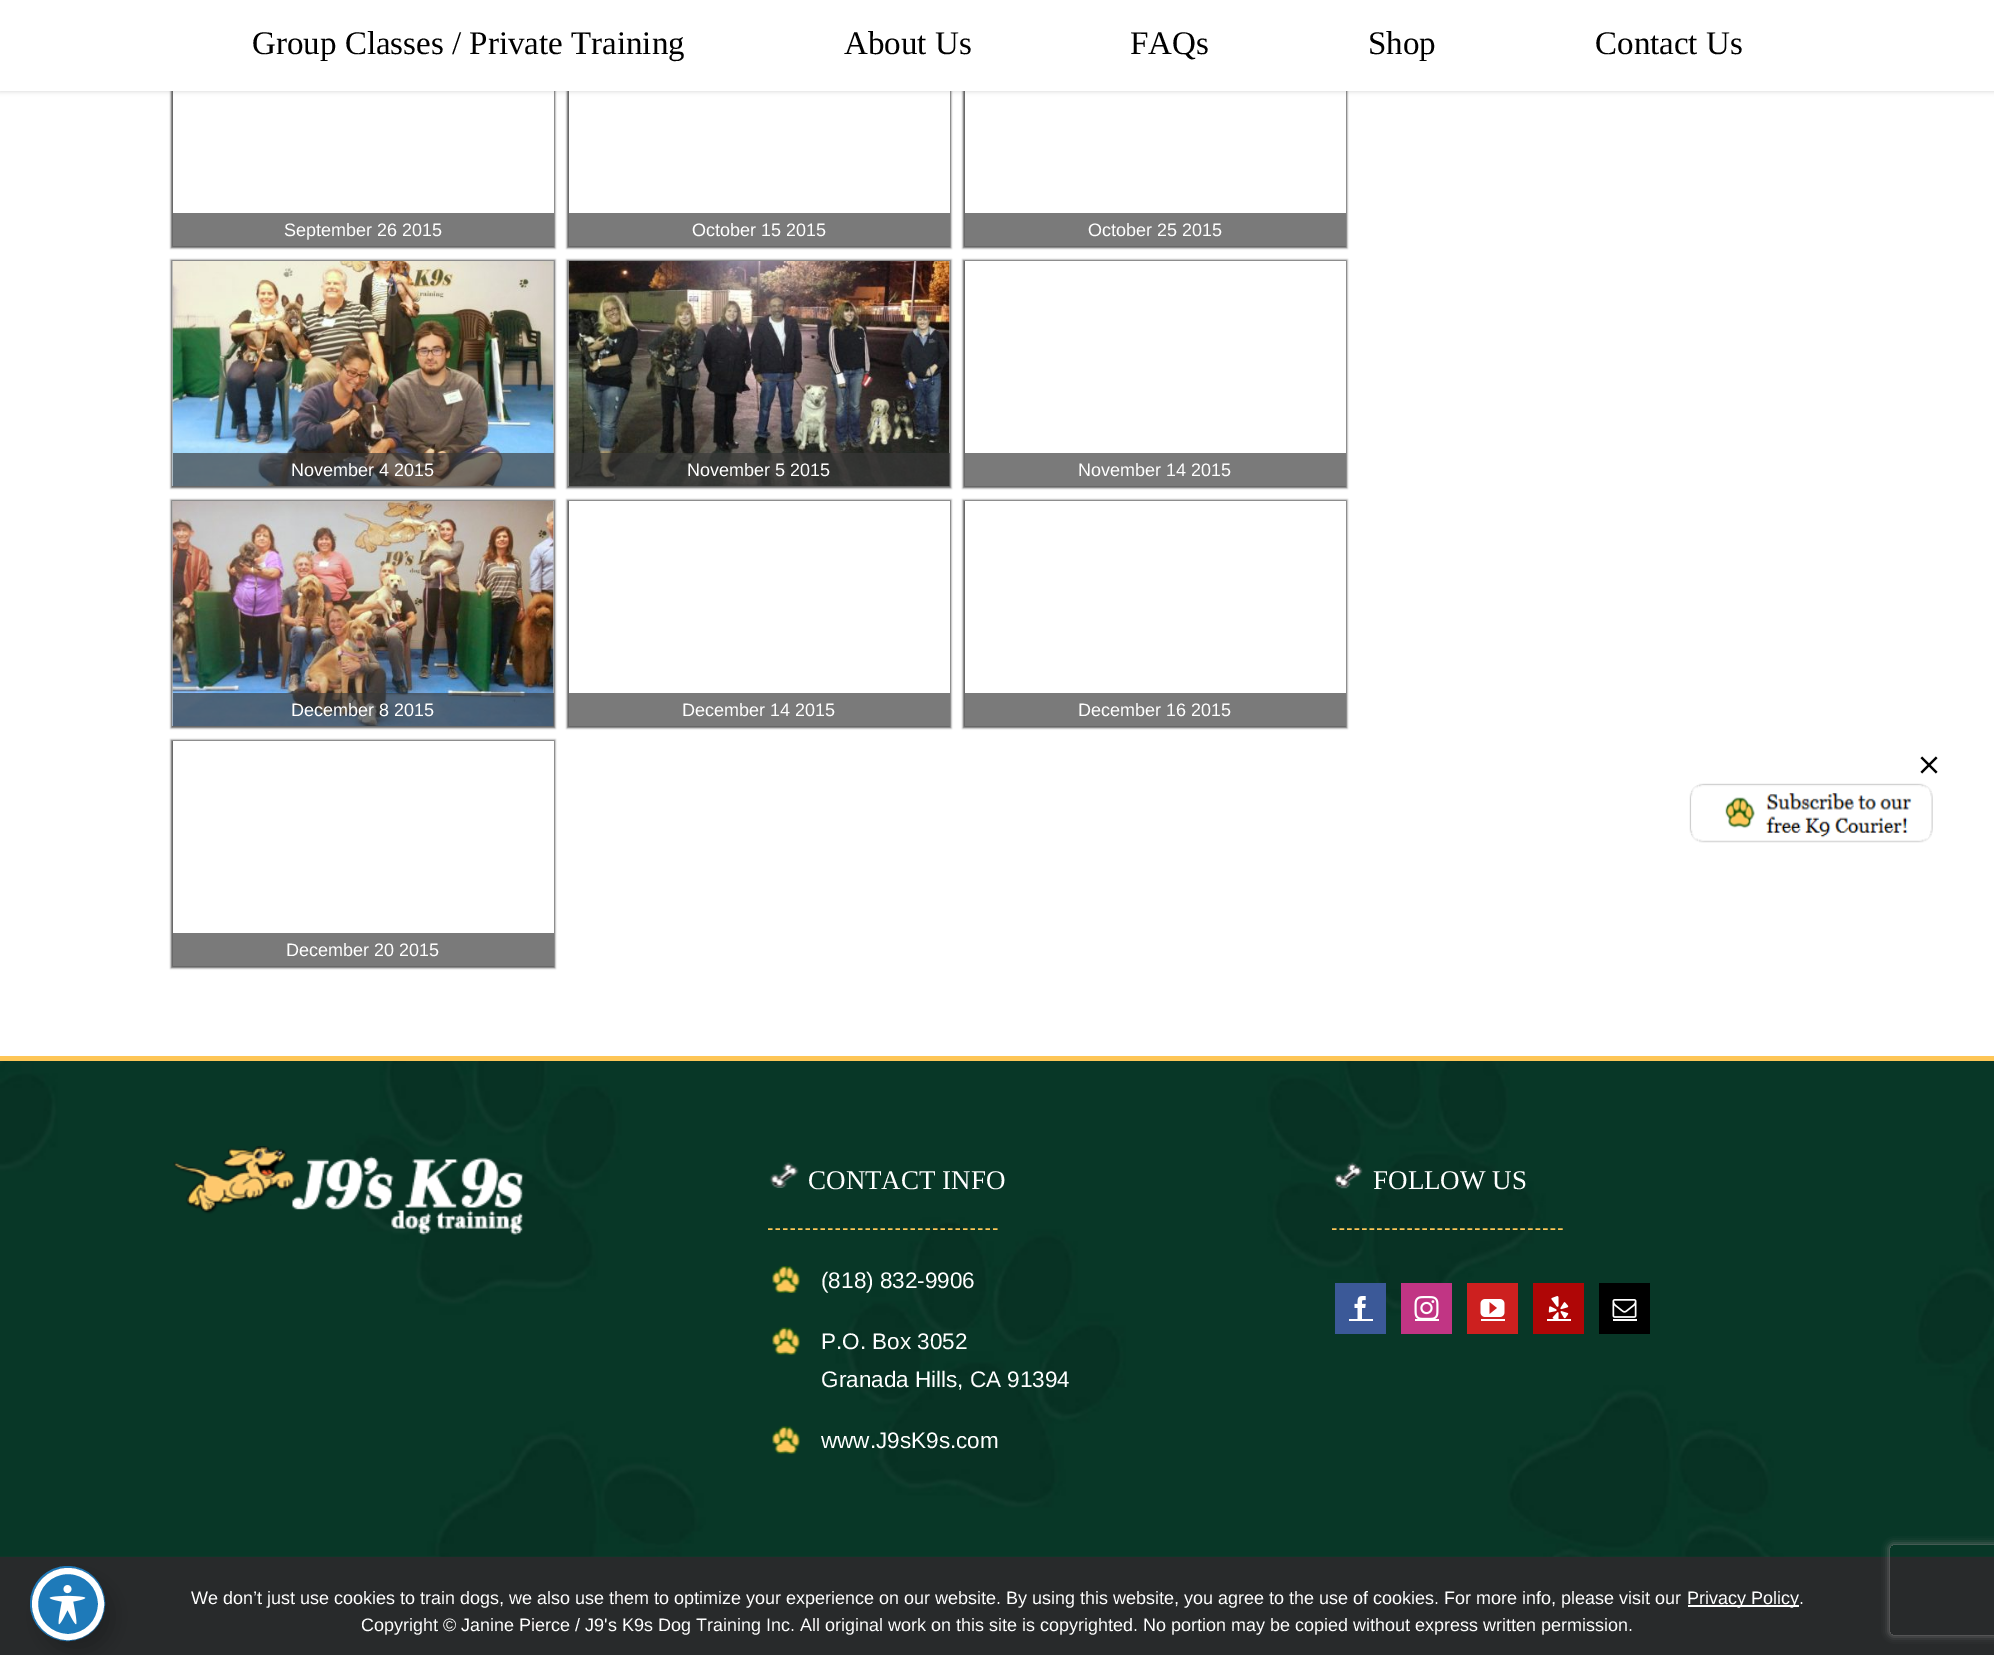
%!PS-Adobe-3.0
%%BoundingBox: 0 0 1994 1655
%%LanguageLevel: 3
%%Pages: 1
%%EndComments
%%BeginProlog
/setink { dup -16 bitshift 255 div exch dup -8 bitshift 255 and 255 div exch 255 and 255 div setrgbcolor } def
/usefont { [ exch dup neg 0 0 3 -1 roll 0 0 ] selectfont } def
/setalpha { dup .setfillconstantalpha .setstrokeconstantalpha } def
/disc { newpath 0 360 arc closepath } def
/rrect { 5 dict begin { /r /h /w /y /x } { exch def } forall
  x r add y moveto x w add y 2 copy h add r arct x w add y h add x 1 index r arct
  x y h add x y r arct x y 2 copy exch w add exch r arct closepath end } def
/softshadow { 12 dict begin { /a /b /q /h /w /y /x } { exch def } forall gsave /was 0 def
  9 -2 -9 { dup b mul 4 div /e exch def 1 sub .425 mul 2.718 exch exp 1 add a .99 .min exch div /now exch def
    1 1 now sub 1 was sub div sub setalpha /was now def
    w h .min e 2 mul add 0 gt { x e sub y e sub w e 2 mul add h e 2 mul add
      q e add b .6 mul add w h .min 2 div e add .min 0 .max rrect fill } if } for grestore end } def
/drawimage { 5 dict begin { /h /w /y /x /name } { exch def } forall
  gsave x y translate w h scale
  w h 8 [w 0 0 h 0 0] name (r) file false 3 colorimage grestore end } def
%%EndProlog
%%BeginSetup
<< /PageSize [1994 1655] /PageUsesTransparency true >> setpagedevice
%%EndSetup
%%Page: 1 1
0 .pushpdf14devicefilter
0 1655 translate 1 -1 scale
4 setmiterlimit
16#FFFFFF setink
0 0 1994 1655 rectfill
16#000000 setink
0 2 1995 90 0 2 0.12 softshadow
gsave
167 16 moveto 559 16 lineto 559 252 lineto 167 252 lineto closepath 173 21 moveto 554 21 lineto 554 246 lineto 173 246 lineto closepath eoclip newpath
16#585858 setink
171 20 384 228 0 1 1 softshadow
grestore
gsave
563 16 moveto 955 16 lineto 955 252 lineto 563 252 lineto closepath 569 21 moveto 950 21 lineto 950 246 lineto 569 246 lineto closepath eoclip newpath
16#585858 setink
567 20 384 228 0 1 1 softshadow
grestore
gsave
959 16 moveto 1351 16 lineto 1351 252 lineto 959 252 lineto closepath 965 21 moveto 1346 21 lineto 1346 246 lineto 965 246 lineto closepath eoclip newpath
16#585858 setink
963 20 384 228 0 1 1 softshadow
grestore
16#FFFFFF setink
0 0 1994 91 rectfill
/LiberationSerif-Regular 33 usefont
16#000000 setink
[
    [(Group Classes / Private Training) 252 54]
    [(About Us) 844 54]
    [(FAQs) 1130 54]
    [(Shop) 1368 54]
    [(Contact Us) 1595 54]
] { aload pop moveto show } forall
0.67 setalpha
16#383838 setink
173 213 381 33 rectfill
/LiberationSans-Regular 18 usefont
1 setalpha
16#FFFFFF setink
284 236 moveto (September 26 2015) show
0.67 setalpha
16#383838 setink
569 213 381 33 rectfill
1 setalpha
16#FFFFFF setink
692 236 moveto (October 15 2015) show
0.67 setalpha
16#383838 setink
965 213 381 33 rectfill
1 setalpha
16#FFFFFF setink
1088 236 moveto (October 25 2015) show
16#585858 setink
171 260 384 228 0 1 1 softshadow
(img1.raw) 172 261 382 225 drawimage
0.67 setalpha
16#383838 setink
173 453 381 33 rectfill
1 setalpha
16#FFFFFF setink
291 476 moveto (November 4 2015) show
16#585858 setink
567 260 384 228 0 1 1 softshadow
(img2.raw) 568 261 382 225 drawimage
0.67 setalpha
16#383838 setink
569 453 381 33 rectfill
1 setalpha
16#FFFFFF setink
687 476 moveto (November 5 2015) show
gsave
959 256 moveto 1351 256 lineto 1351 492 lineto 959 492 lineto closepath 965 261 moveto 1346 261 lineto 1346 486 lineto 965 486 lineto closepath eoclip newpath
16#585858 setink
963 260 384 228 0 1 1 softshadow
grestore
0.67 setalpha
16#383838 setink
965 453 381 33 rectfill
1 setalpha
16#FFFFFF setink
1078 476 moveto (November 14 2015) show
16#585858 setink
171 500 384 228 0 1 1 softshadow
(img3.raw) 172 501 382 225 drawimage
0.67 setalpha
16#383838 setink
173 693 381 33 rectfill
1 setalpha
16#FFFFFF setink
291 716 moveto (December 8 2015) show
gsave
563 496 moveto 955 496 lineto 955 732 lineto 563 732 lineto closepath 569 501 moveto 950 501 lineto 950 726 lineto 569 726 lineto closepath eoclip newpath
16#585858 setink
567 500 384 228 0 1 1 softshadow
grestore
0.67 setalpha
16#383838 setink
569 693 381 33 rectfill
1 setalpha
16#FFFFFF setink
682 716 moveto (December 14 2015) show
gsave
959 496 moveto 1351 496 lineto 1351 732 lineto 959 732 lineto closepath 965 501 moveto 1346 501 lineto 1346 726 lineto 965 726 lineto closepath eoclip newpath
16#585858 setink
963 500 384 228 0 1 1 softshadow
grestore
0.67 setalpha
16#383838 setink
965 693 381 33 rectfill
1 setalpha
16#FFFFFF setink
1078 716 moveto (December 16 2015) show
gsave
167 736 moveto 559 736 lineto 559 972 lineto 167 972 lineto closepath 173 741 moveto 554 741 lineto 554 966 lineto 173 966 lineto closepath eoclip newpath
16#585858 setink
171 740 384 228 0 1 1 softshadow
grestore
0.67 setalpha
16#383838 setink
173 933 381 33 rectfill
1 setalpha
16#FFFFFF setink
286 956 moveto (December 20 2015) show
(img4.raw) 0 1061 1994 496 drawimage
16#FEC657 setink
0 1056 1994 5 rectfill
(img5.raw) 173 1146 351 89 drawimage
(img6.raw) 769 1162 30 26 drawimage
/LiberationSerif-Regular 27 usefont
16#FFFFFF setink
808 1189 moveto (CONTACT INFO) show
16#FEC658 setink
1.5 setlinewidth
[4.5 3] 0 setdash
768 1229 moveto 997.5 1229 lineto stroke
(img7.raw) 772 1266 28 27 drawimage
/LiberationSans-Regular 22.5 usefont
16#FFFFFF setink
821 1288 moveto (\(818\) 832-9906) show
(img8.raw) 772 1327 28 28 drawimage
821 1349 moveto (P.O. Box 3052) show
821 1387 moveto (Granada Hills, CA 91394) show
(img8.raw) 772 1426 28 28 drawimage
821 1448 moveto (www.J9sK9s.com) show
(img9.raw) 1333 1162 30 27 drawimage
/LiberationSerif-Regular 27 usefont
1373 1189 moveto (FOLLOW US) show
16#FEC658 setink
[4.5 3.04] 0 setdash
1332 1229 moveto 1563 1229 lineto stroke
16#3B5998 setink
1335 1283 51 51 rectfill
16#FFFFFF setink
1349 1319 24 2 rectfill
(img10.raw) 1354 1296 12 23 drawimage
16#C13584 setink
1401 1283 51 51 rectfill
16#FFFFFF setink
1415 1319 24 2 rectfill
(img11.raw) 1414 1296 25 23 drawimage
16#CD201F setink
1467 1283 51 51 rectfill
16#FFFFFF setink
1481 1319 24 2 rectfill
(img12.raw) 1480 1299 25 18 drawimage
16#AF0606 setink
1533 1283 51 51 rectfill
16#FFFFFF setink
1547 1319 24 2 rectfill
(img13.raw) 1548 1296 21 23 drawimage
16#000000 setink
1599 1283 51 51 rectfill
16#FFFFFF setink
1613 1319 24 2 rectfill
(img14.raw) 1612 1299 25 19 drawimage
16#282A2B setink
0 1557 1994 98 rectfill
/LiberationSans-Regular 18 usefont
16#FFFFFF setink
191 1604 moveto (We don’t just use cookies to train dogs, we also use them to optimize your experience on our website. By using this website, you agree to the use of cookies. For more info, please visit our) show
1688 1605 111 2 rectfill
1687 1604 moveto (Privacy Policy.) show
361 1631 moveto (Copyright © Janine Pierce / J9's K9s Dog Training Inc. All original work on this site is copyrighted. No portion may be copied without express written permission.) show
(img15.raw) 1920 756 18 18 drawimage
(img16.raw) 1689 783 244 60 drawimage
16#1E7AB9 setink
2 setlinewidth
[] 0 setdash
67.5 1603.5 36.5 disc stroke
16#000000 setink
41 1580 72 72 36 12 0.2 softshadow
16#1E7AB9 setink
68 1604 33 disc gsave fill grestore
16#FFFFFF setink
6 setlinewidth
stroke
(img17.raw) 49 1585 37 40 drawimage
gsave
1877 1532 moveto 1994 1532 lineto 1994 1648 lineto 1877 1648 lineto closepath 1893 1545 moveto 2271 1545 lineto 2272.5 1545 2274 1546.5 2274 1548 curveto 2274 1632 lineto 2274 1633.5 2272.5 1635 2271 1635 curveto 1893 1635 lineto 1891.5 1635 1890 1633.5 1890 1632 curveto 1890 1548 lineto 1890 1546.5 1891.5 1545 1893 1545 curveto closepath eoclip newpath
16#808080 setink
1890 1545 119 90 3 4 1 softshadow
grestore
.poppdf14devicefilter showpage
%%EOF
